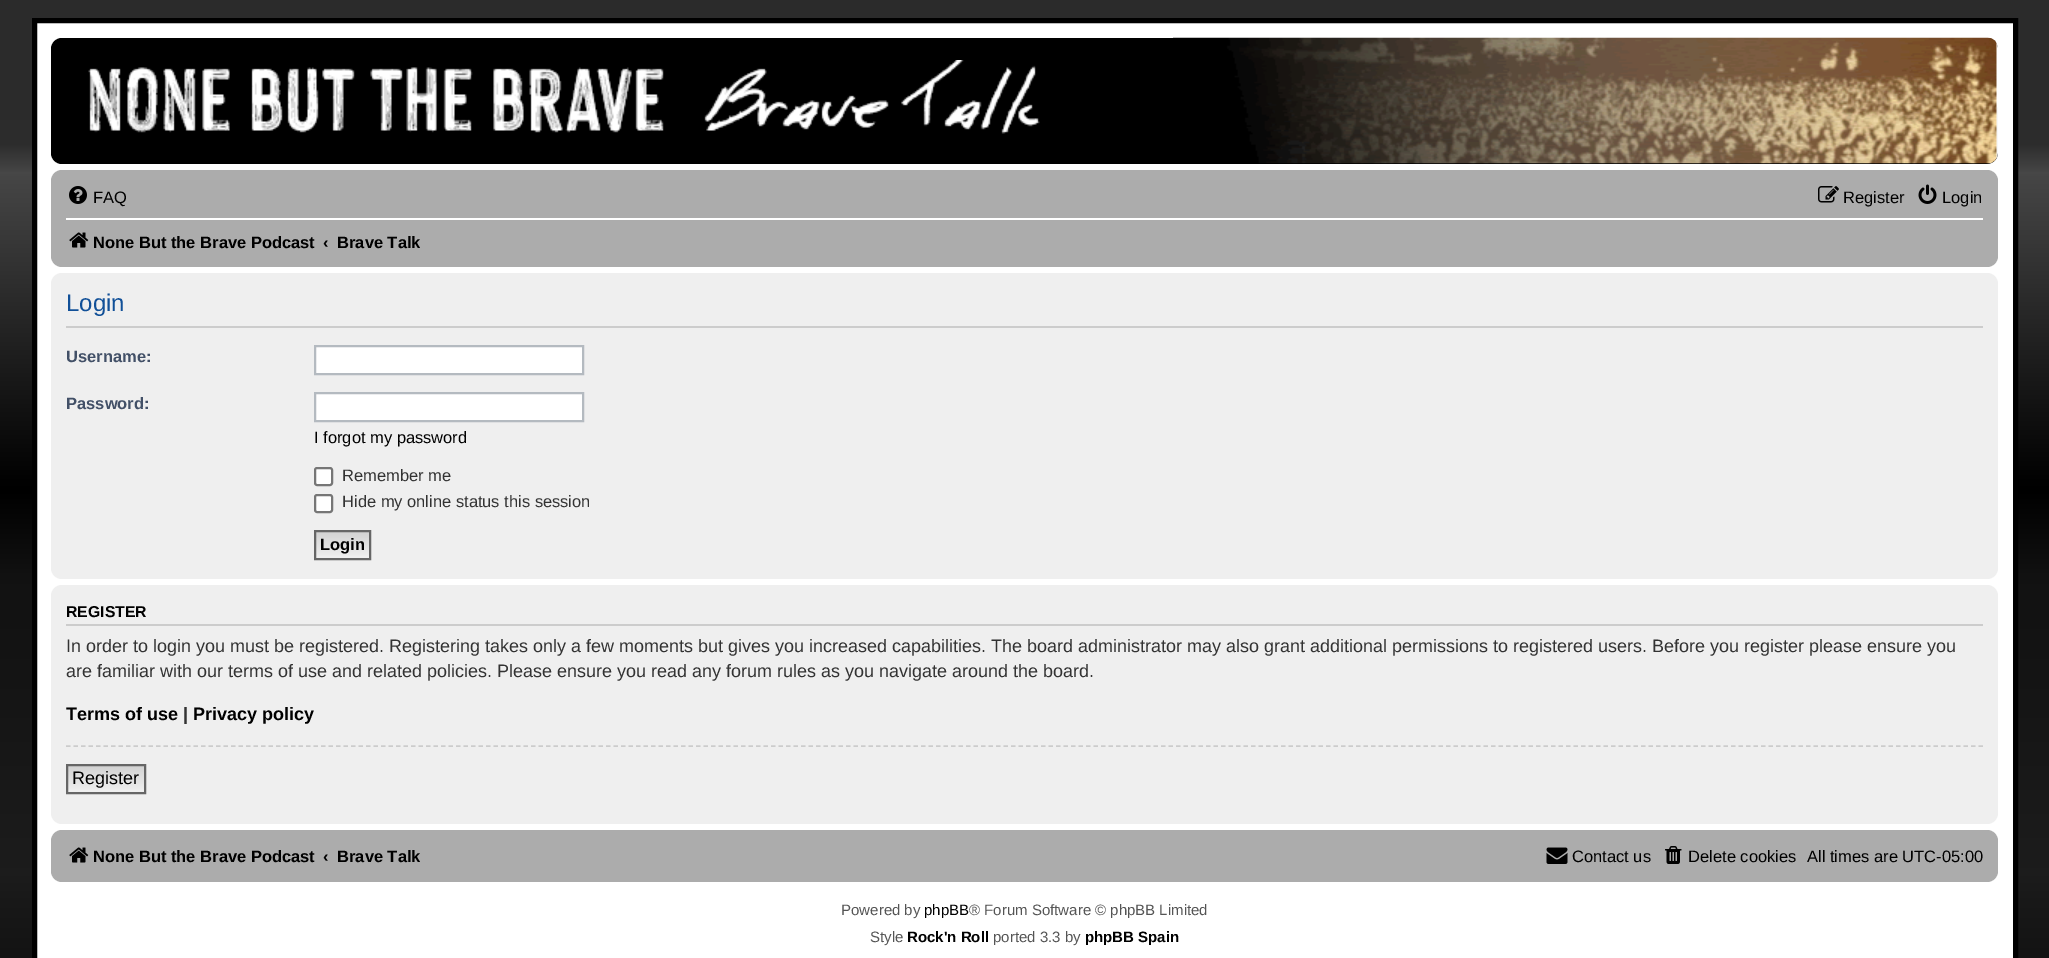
%!PS-Adobe-3.0
%%BoundingBox: 0 0 2049 958
%%LanguageLevel: 3
%%Pages: 1
%%EndComments
%%BeginProlog
/setink { dup -16 bitshift 255 div exch dup -8 bitshift 255 and 255 div exch 255 and 255 div setrgbcolor } def
/usefont { [ exch dup neg 0 0 3 -1 roll 0 0 ] selectfont } def
/rrect { 5 dict begin { /r /h /w /y /x } { exch def } forall
  x r add y moveto x w add y 2 copy h add r arct x w add y h add x 1 index r arct
  x y h add x y r arct x y 2 copy exch w add exch r arct closepath end } def
/drawimage { 5 dict begin { /h /w /y /x /name } { exch def } forall
  gsave x y translate w h scale
  w h 8 [w 0 0 h 0 0] name (r) file false 3 colorimage grestore end } def
%%EndProlog
%%BeginSetup
<< /PageSize [2049 958] >> setpagedevice
%%EndSetup
%%Page: 1 1
0 958 translate 1 -1 scale
4 setmiterlimit
16#FFFFFF setink
0 0 2049 958 rectfill
gsave 0 0 moveto 2049 0 lineto 2049 958 lineto 0 958 lineto closepath clip newpath
<< /ShadingType 2 /ColorSpace /DeviceRGB /Coords [1025 0 1025 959] /Extend [true true] /Function << /FunctionType 3 /Domain [0 1] /Functions [<< /FunctionType 2 /Domain [0 1] /C0 [0.169 0.169 0.169] /C1 [0.173 0.173 0.173] /N 1 >> << /FunctionType 2 /Domain [0 1] /C0 [0.173 0.173 0.173] /C1 [0.278 0.278 0.278] /N 1 >> << /FunctionType 2 /Domain [0 1] /C0 [0.278 0.278 0.278] /C1 [0 0 0] /N 1 >> << /FunctionType 2 /Domain [0 1] /C0 [0 0 0] /C1 [0.067 0.067 0.067] /N 1 >> << /FunctionType 2 /Domain [0 1] /C0 [0.067 0.067 0.067] /C1 [0.11 0.11 0.11] /N 1 >> << /FunctionType 2 /Domain [0 1] /C0 [0.11 0.11 0.11] /C1 [0.075 0.075 0.075] /N 1 >>] /Bounds [0.15 0.18 0.51 0.6 0.91] /Encode [0 1 0 1 0 1 0 1 0 1 0 1] >> >> shfill grestore
34.5 20.5 moveto 2015.5 20.5 lineto 2015.5 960.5 lineto 34.5 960.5 lineto closepath gsave fill grestore
16#000000 setink
5 setlinewidth
stroke
51 38 1947 126 11 rrect fill
(img1.raw) 1173 37 825 127 drawimage
(img2.raw) 88 60 952 74 drawimage
16#ACACAC setink
51 170 1947 97 11 rrect fill
(img3.raw) 69 186 18 18 drawimage
/LiberationSans-Regular 16.5 usefont
16#000000 setink
93 203 moveto (FAQ) show
(img4.raw) 1818 186 21 17 drawimage
1843 203 moveto (Register) show
(img5.raw) 1918 184 19 20 drawimage
1942 203 moveto (Login) show
16#FFFFFF setink
66 218 1917 2 rectfill
(img6.raw) 69 232 20 16 drawimage
/LiberationSans-Bold 16.5 usefont
16#000000 setink
[
    [(None But the Brave Podcast) 93 248]
    [(‹) 323 248]
    [(Brave Talk) 337 248]
] { aload pop moveto show } forall
16#EFEFEF setink
51 273 1947 306 11 rrect fill
16#CCCCCC setink
66 326 1917 2 rectfill
/LiberationSans-Regular 24 usefont
16#115098 setink
66 311 moveto (Login) show
/LiberationSans-Bold 16.5 usefont
16#425067 setink
66 362 moveto (Username:) show
16#FFFFFF setink
315 346 moveto 583 346 lineto 583 374 lineto 315 374 lineto closepath gsave fill grestore
16#B4BAC0 setink
2 setlinewidth
stroke
16#425067 setink
66 409 moveto (Password:) show
16#FFFFFF setink
315 393 moveto 583 393 lineto 583 421 lineto 315 421 lineto closepath gsave fill grestore
16#B4BAC0 setink
stroke
/LiberationSans-Regular 16.5 usefont
16#000000 setink
314 443 moveto (I forgot my password) show
16#FFFFFF setink
315 468 17 17 2 rrect gsave fill grestore
16#767676 setink
stroke
16#333333 setink
342 481 moveto (Remember me) show
16#FFFFFF setink
315 495 17 17 2 rrect gsave fill grestore
16#767676 setink
stroke
16#333333 setink
342 507 moveto (Hide my online status this session) show
gsave 316 532 moveto 369 532 lineto 369 556 lineto 316 556 lineto closepath clip newpath
<< /ShadingType 2 /ColorSpace /DeviceRGB /Coords [342 531 342 558] /Extend [true true] /Function << /FunctionType 2 /Domain [0 1] /C0 [0.824 0.824 0.824] /C1 [0.937 0.937 0.937] /N 1 >> >> shfill grestore
16#666666 setink
315 531 55 28 rectstroke
/LiberationSans-Bold 16.5 usefont
16#000000 setink
320 550 moveto (Login) show
16#EFEFEF setink
51 585 1947 239 11 rrect fill
16#CCCCCC setink
66 624 1917 2 rectfill
/LiberationSans-Bold 15.75 usefont
16#000000 setink
66 617 moveto (REGISTER) show
/LiberationSans-Regular 18 usefont
16#333333 setink
66 652 moveto (In order to login you must be registered. Registering takes only a few moments but gives you increased capabilities. The board administrator may also grant additional permissions to registered users. Before you register please ensure you) show
66 677 moveto (are familiar with our terms of use and related policies. Please ensure you read any forum rules as you navigate around the board.) show
/LiberationSans-Bold 18 usefont
16#000000 setink
66 720 moveto (Terms of use) show
16#333333 setink
183 720 moveto (|) show
16#000000 setink
193 720 moveto (Privacy policy) show
16#CCCCCC setink
1.5 setlinewidth
[4.5 3] 0 setdash
66 746 moveto 1983 746 lineto stroke
gsave 68 766 moveto 144 766 lineto 144 790 lineto 68 790 lineto closepath clip newpath
<< /ShadingType 2 /ColorSpace /DeviceRGB /Coords [106 765 106 792] /Extend [true true] /Function << /FunctionType 2 /Domain [0 1] /C0 [0.824 0.824 0.824] /C1 [0.937 0.937 0.937] /N 1 >> >> shfill grestore
16#666666 setink
2 setlinewidth
[] 0 setdash
67 765 78 28 rectstroke
/LiberationSans-Regular 18 usefont
16#000000 setink
72 784 moveto (Register) show
16#ACACAC setink
51 830 1947 52 11 rrect fill
(img6.raw) 69 847 20 16 drawimage
/LiberationSans-Bold 16.5 usefont
16#000000 setink
[
    [(None But the Brave Podcast) 93 862]
    [(‹) 323 862]
    [(Brave Talk) 337 862]
] { aload pop moveto show } forall
(img7.raw) 1546 847 22 17 drawimage
/LiberationSans-Regular 16.5 usefont
1572 862 moveto (Contact us) show
(img8.raw) 1665 846 17 18 drawimage
1688 862 moveto (Delete cookies) show
1807 862 moveto (All times are UTC-05:00) show
/LiberationSans-Regular 15 usefont
16#555555 setink
841 915 moveto (Powered by) show
16#000000 setink
924 915 moveto (phpBB) show
16#555555 setink
969 915 moveto (® Forum Software © phpBB Limited) show
870 942 moveto (Style) show
/LiberationSans-Bold 15 usefont
16#000000 setink
907 942 moveto (Rock'n Roll) show
/LiberationSans-Regular 15 usefont
16#555555 setink
993 942 moveto (ported 3.3 by) show
/LiberationSans-Bold 15 usefont
16#000000 setink
1085 942 moveto (phpBB Spain) show
showpage
%%EOF
